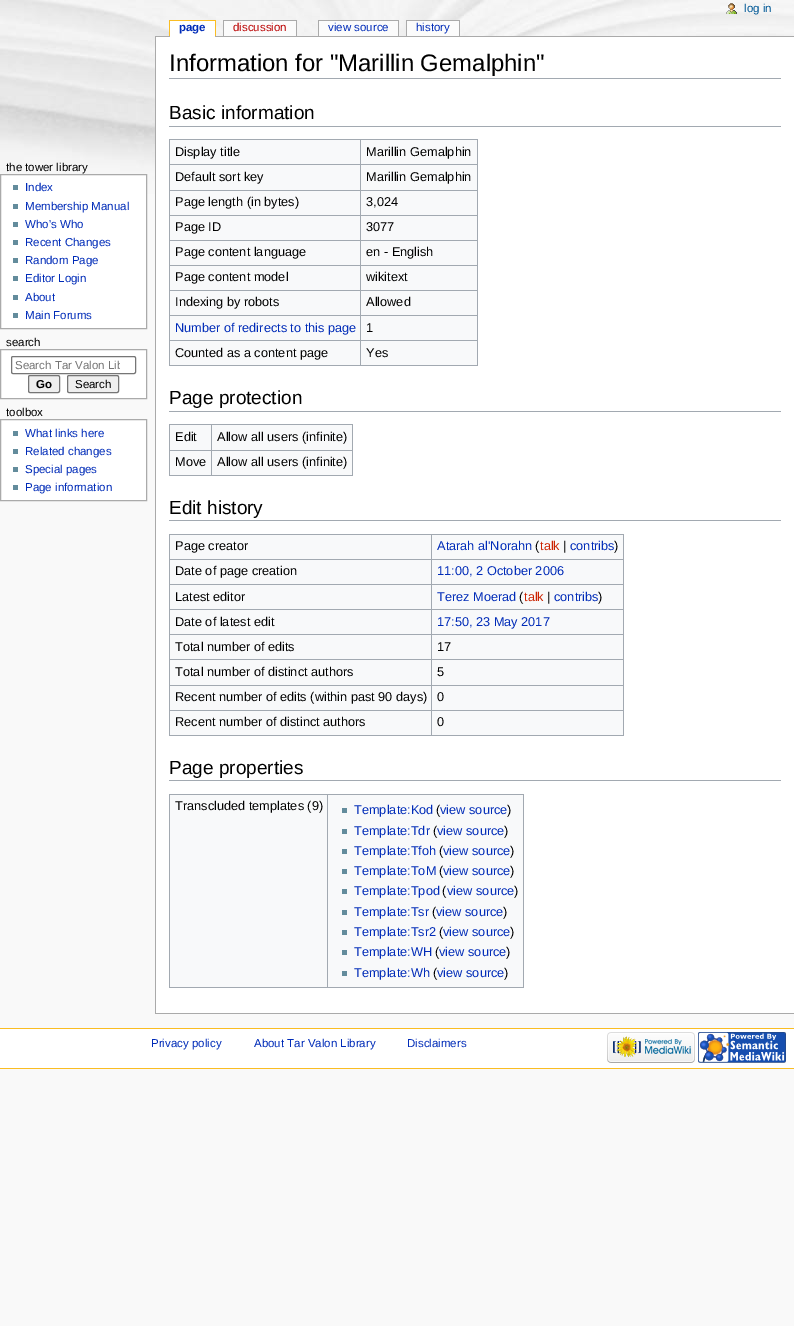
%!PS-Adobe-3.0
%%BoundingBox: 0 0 794 1326
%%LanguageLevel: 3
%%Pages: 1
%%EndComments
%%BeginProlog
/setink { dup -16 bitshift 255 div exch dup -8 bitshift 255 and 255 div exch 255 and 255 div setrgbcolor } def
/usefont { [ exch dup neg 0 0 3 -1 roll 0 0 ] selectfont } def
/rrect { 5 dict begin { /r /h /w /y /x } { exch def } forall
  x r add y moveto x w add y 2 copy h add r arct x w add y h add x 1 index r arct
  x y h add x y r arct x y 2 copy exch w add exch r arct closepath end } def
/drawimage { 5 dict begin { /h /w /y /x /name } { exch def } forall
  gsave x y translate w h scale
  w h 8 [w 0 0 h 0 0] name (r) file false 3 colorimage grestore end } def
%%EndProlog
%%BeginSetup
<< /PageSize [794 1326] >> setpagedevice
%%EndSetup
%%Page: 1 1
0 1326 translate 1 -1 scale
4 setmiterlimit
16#F9F9F9 setink
0 0 794 1326 rectfill
(img1.raw) 0 0 794 194 drawimage
(img2.raw) 726 3 11 11 drawimage
/LiberationSans-Regular 11.5 usefont
16#005896 setink
744 12 moveto (log in) show
16#AAAAAA setink
155 36 639 1 rectfill
16#FFFFFF setink
170 21 45 16 rectfill
/LiberationSans-Bold 11.5 usefont
16#002BB8 setink
179 31 moveto (page) show
[
    [169 20 47 1 16#FABD23]
    [215 20 1 16 16#FABD23]
    [169 20 1 16 16#FABD23]
    [224 21 72 15 16#FBFBFB]
] { aload pop setink rectfill } forall
/LiberationSans-Regular 11.5 usefont
16#BA0000 setink
233 31 moveto (discussion) show
[
    [223 20 74 1 16#AAAAAA]
    [296 20 1 16 16#AAAAAA]
    [223 20 1 16 16#AAAAAA]
    [319 21 79 15 16#FBFBFB]
] { aload pop setink rectfill } forall
16#002BB8 setink
328 31 moveto (view source) show
[
    [318 20 81 1 16#AAAAAA]
    [398 20 1 16 16#AAAAAA]
    [318 20 1 16 16#AAAAAA]
    [407 21 52 15 16#FBFBFB]
] { aload pop setink rectfill } forall
16#002BB8 setink
416 31 moveto (history) show
[
    [406 20 54 1 16#AAAAAA]
    [459 20 1 16 16#AAAAAA]
    [406 20 1 16 16#AAAAAA]
] { aload pop setink rectfill } forall
16#000000 setink
6 171 moveto (the tower library) show
16#FFFFFF setink
0.5 174.5 moveto 146.5 174.5 lineto 146.5 328.5 lineto 0.5 328.5 lineto closepath gsave fill grestore
16#AAAAAA setink
stroke
16#638C9C setink
13 185 5 5 rectfill
16#002BB8 setink
25 191 moveto (Index) show
16#638C9C setink
13 204 5 5 rectfill
16#002BB8 setink
25 210 moveto (Membership Manual) show
16#638C9C setink
13 222 5 5 rectfill
16#002BB8 setink
25 228 moveto (Who's Who) show
16#638C9C setink
13 240 5 5 rectfill
16#002BB8 setink
25 246 moveto (Recent Changes) show
16#638C9C setink
13 258 5 5 rectfill
16#002BB8 setink
25 264 moveto (Random Page) show
16#638C9C setink
13 276 5 5 rectfill
16#002BB8 setink
25 282 moveto (Editor Login) show
16#638C9C setink
13 295 5 5 rectfill
16#002BB8 setink
25 301 moveto (About) show
16#638C9C setink
13 313 5 5 rectfill
16#002BB8 setink
25 319 moveto (Main Forums) show
16#000000 setink
6 346 moveto (search) show
16#FFFFFF setink
0.5 349.5 moveto 146.5 349.5 lineto 146.5 398.5 lineto 0.5 398.5 lineto closepath gsave fill grestore
16#AAAAAA setink
stroke
16#767676 setink
11.5 356.5 124 17 1.5 rrect stroke
gsave
15 359 105 12 rectclip
16#757575 setink
15 369 moveto (Search Tar Valon Lib) show
grestore
16#EFEFEF setink
28.5 375.5 31 17 1.5 rrect gsave fill grestore
16#767676 setink
stroke
/LiberationSans-Bold 11.5 usefont
16#000000 setink
36 388 moveto (Go) show
16#EFEFEF setink
67.5 375.5 51 17 1.5 rrect gsave fill grestore
16#767676 setink
stroke
/LiberationSans-Regular 11.5 usefont
16#000000 setink
75 388 moveto (Search) show
6 416 moveto (toolbox) show
16#FFFFFF setink
0.5 419.5 moveto 146.5 419.5 lineto 146.5 500.5 lineto 0.5 500.5 lineto closepath gsave fill grestore
16#AAAAAA setink
stroke
16#638C9C setink
13 431 5 5 rectfill
16#002BB8 setink
25 437 moveto (What links here) show
16#638C9C setink
13 449 5 5 rectfill
16#002BB8 setink
25 455 moveto (Related changes) show
16#638C9C setink
13 467 5 5 rectfill
16#002BB8 setink
25 473 moveto (Special pages) show
16#638C9C setink
13 485 5 5 rectfill
16#002BB8 setink
25 491 moveto (Page information) show
[
    [156 37 638 976 16#FFFFFF]
    [155 1013 639 1 16#AAAAAA]
    [155 36 1 978 16#AAAAAA]
    [169 78 612 1 16#A2A9B1]
] { aload pop setink rectfill } forall
/LiberationSans-Regular 23.9 usefont
16#000000 setink
169 71 moveto (Information for "Marillin Gemalphin") show
16#A2A9B1 setink
169 126 612 1 rectfill
/LiberationSans-Regular 19 usefont
16#000000 setink
169 119 moveto (Basic information) show
[
    [170 140 307 225 16#F8F9FA]
    [169 139 309 1 16#A2A9B1]
    [477 139 1 227 16#A2A9B1]
    [169 365 309 1 16#A2A9B1]
    [169 139 1 227 16#A2A9B1]
] { aload pop setink rectfill } forall
/LiberationSans-Regular 12.75 usefont
16#000000 setink
175 156 moveto (Display title) show
[
    [360 164 118 1 16#A2A9B1]
    [360 190 118 1 16#A2A9B1]
    [360 215 118 1 16#A2A9B1]
    [360 240 118 1 16#A2A9B1]
    [360 265 118 1 16#A2A9B1]
    [360 290 118 1 16#A2A9B1]
    [360 315 118 1 16#A2A9B1]
    [360 340 118 1 16#A2A9B1]
    [360 340 1 26 16#A2A9B1]
    [169 340 192 1 16#A2A9B1]
    [360 315 1 26 16#A2A9B1]
    [169 315 192 1 16#A2A9B1]
    [360 290 1 26 16#A2A9B1]
    [169 290 192 1 16#A2A9B1]
    [360 265 1 26 16#A2A9B1]
    [169 265 192 1 16#A2A9B1]
    [360 240 1 26 16#A2A9B1]
    [169 240 192 1 16#A2A9B1]
    [360 215 1 26 16#A2A9B1]
    [169 215 192 1 16#A2A9B1]
    [360 190 1 26 16#A2A9B1]
    [169 190 192 1 16#A2A9B1]
    [360 164 1 27 16#A2A9B1]
    [169 164 192 1 16#A2A9B1]
    [360 139 1 26 16#A2A9B1]
] { aload pop setink rectfill } forall
16#000000 setink
[
    [(Marillin Gemalphin) 366 156]
    [(Default sort key) 175 181]
    [(Marillin Gemalphin) 366 181]
    [(Page length \(in bytes\)) 175 206]
    [(3,024) 366 206]
    [(Page ID) 175 231]
    [(3077) 366 231]
    [(Page content language) 175 256]
    [(en - English) 366 256]
    [(Page content model) 175 281]
    [(wikitext) 366 281]
    [(Indexing by robots) 175 306]
    [(Allowed) 366 306]
] { aload pop moveto show } forall
16#002BB8 setink
175 332 moveto (Number of redirects to this page) show
16#000000 setink
[
    [(1) 366 332]
    [(Counted as a content page) 175 357]
    [(Yes) 366 357]
] { aload pop moveto show } forall
16#A2A9B1 setink
169 411 612 1 rectfill
/LiberationSans-Regular 19 usefont
16#000000 setink
169 404 moveto (Page protection) show
[
    [170 425 182 50 16#F8F9FA]
    [169 424 184 1 16#A2A9B1]
    [352 424 1 52 16#A2A9B1]
    [169 475 184 1 16#A2A9B1]
    [169 424 1 52 16#A2A9B1]
] { aload pop setink rectfill } forall
/LiberationSans-Regular 12.75 usefont
16#000000 setink
175 441 moveto (Edit) show
[
    [211 450 142 1 16#A2A9B1]
    [211 450 1 26 16#A2A9B1]
    [169 450 43 1 16#A2A9B1]
    [211 424 1 27 16#A2A9B1]
] { aload pop setink rectfill } forall
16#000000 setink
[
    [(Allow all users \(infinite\)) 217 441]
    [(Move) 175 466]
    [(Allow all users \(infinite\)) 217 466]
] { aload pop moveto show } forall
16#A2A9B1 setink
169 520 612 1 rectfill
/LiberationSans-Regular 19 usefont
16#000000 setink
169 514 moveto (Edit history) show
[
    [170 535 453 200 16#F8F9FA]
    [169 534 455 1 16#A2A9B1]
    [623 534 1 202 16#A2A9B1]
    [169 735 455 1 16#A2A9B1]
    [169 534 1 202 16#A2A9B1]
] { aload pop setink rectfill } forall
/LiberationSans-Regular 12.75 usefont
16#000000 setink
175 550 moveto (Page creator) show
[
    [431 559 193 1 16#A2A9B1]
    [431 584 193 1 16#A2A9B1]
    [431 609 193 1 16#A2A9B1]
    [431 634 193 1 16#A2A9B1]
    [431 659 193 1 16#A2A9B1]
    [431 685 193 1 16#A2A9B1]
    [431 710 193 1 16#A2A9B1]
    [431 710 1 26 16#A2A9B1]
    [169 710 263 1 16#A2A9B1]
    [431 685 1 26 16#A2A9B1]
    [169 685 263 1 16#A2A9B1]
    [431 659 1 27 16#A2A9B1]
    [169 659 263 1 16#A2A9B1]
    [431 634 1 26 16#A2A9B1]
    [169 634 263 1 16#A2A9B1]
    [431 609 1 26 16#A2A9B1]
    [169 609 263 1 16#A2A9B1]
    [431 584 1 26 16#A2A9B1]
    [169 584 263 1 16#A2A9B1]
    [431 559 1 26 16#A2A9B1]
    [169 559 263 1 16#A2A9B1]
    [431 534 1 26 16#A2A9B1]
] { aload pop setink rectfill } forall
16#002BB8 setink
437 550 moveto (Atarah al'Norahn) show
16#000000 setink
535 550 moveto (\() show
16#CC2200 setink
540 550 moveto (talk) show
16#000000 setink
563 550 moveto (|) show
16#002BB8 setink
570 550 moveto (contribs) show
16#000000 setink
614 550 moveto (\)) show
175 575 moveto (Date of page creation) show
16#002BB8 setink
437 575 moveto (11:00, 2 October 2006) show
16#000000 setink
175 601 moveto (Latest editor) show
16#002BB8 setink
437 601 moveto (Terez Moerad) show
16#000000 setink
519 601 moveto (\() show
16#CC2200 setink
524 601 moveto (talk) show
16#000000 setink
547 601 moveto (|) show
16#002BB8 setink
554 601 moveto (contribs) show
16#000000 setink
598 601 moveto (\)) show
175 626 moveto (Date of latest edit) show
16#002BB8 setink
437 626 moveto (17:50, 23 May 2017) show
16#000000 setink
[
    [(Total number of edits) 175 651]
    [(17) 437 651]
    [(Total number of distinct authors) 175 676]
    [(5) 437 676]
    [(Recent number of edits \(within past 90 days\)) 175 701]
    [(0) 437 701]
    [(Recent number of distinct authors) 175 726]
    [(0) 437 726]
] { aload pop moveto show } forall
16#A2A9B1 setink
169 780 612 1 rectfill
/LiberationSans-Regular 19 usefont
16#000000 setink
169 774 moveto (Page properties) show
[
    [170 795 353 192 16#F8F9FA]
    [169 794 355 1 16#A2A9B1]
    [523 794 1 194 16#A2A9B1]
    [169 987 355 1 16#A2A9B1]
    [169 794 1 194 16#A2A9B1]
] { aload pop setink rectfill } forall
/LiberationSans-Regular 12.75 usefont
16#000000 setink
175 810 moveto (Transcluded templates \(9\)) show
16#A2A9B1 setink
327 794 1 194 rectfill
16#638C9C setink
342 808 5 5 rectfill
16#002BB8 setink
354 814 moveto (Template:Kod) show
16#000000 setink
436 814 moveto (\() show
16#002BB8 setink
440 814 moveto (view source) show
16#000000 setink
507 814 moveto (\)) show
16#638C9C setink
342 829 5 5 rectfill
16#002BB8 setink
354 835 moveto (Template:Tdr) show
16#000000 setink
433 835 moveto (\() show
16#002BB8 setink
437 835 moveto (view source) show
16#000000 setink
504 835 moveto (\)) show
16#638C9C setink
342 849 5 5 rectfill
16#002BB8 setink
354 855 moveto (Template:Tfoh) show
16#000000 setink
439 855 moveto (\() show
16#002BB8 setink
443 855 moveto (view source) show
16#000000 setink
510 855 moveto (\)) show
16#638C9C setink
342 869 5 5 rectfill
16#002BB8 setink
354 875 moveto (Template:ToM) show
16#000000 setink
439 875 moveto (\() show
16#002BB8 setink
443 875 moveto (view source) show
16#000000 setink
510 875 moveto (\)) show
16#638C9C setink
342 889 5 5 rectfill
16#002BB8 setink
354 895 moveto (Template:Tpod) show
16#000000 setink
442 895 moveto (\() show
16#002BB8 setink
447 895 moveto (view source) show
16#000000 setink
514 895 moveto (\)) show
16#638C9C setink
342 910 5 5 rectfill
16#002BB8 setink
354 916 moveto (Template:Tsr) show
16#000000 setink
432 916 moveto (\() show
16#002BB8 setink
436 916 moveto (view source) show
16#000000 setink
503 916 moveto (\)) show
16#638C9C setink
342 930 5 5 rectfill
16#002BB8 setink
354 936 moveto (Template:Tsr2) show
16#000000 setink
439 936 moveto (\() show
16#002BB8 setink
443 936 moveto (view source) show
16#000000 setink
510 936 moveto (\)) show
16#638C9C setink
342 950 5 5 rectfill
16#002BB8 setink
354 956 moveto (Template:WH) show
16#000000 setink
435 956 moveto (\() show
16#002BB8 setink
439 956 moveto (view source) show
16#000000 setink
506 956 moveto (\)) show
16#638C9C setink
342 971 5 5 rectfill
16#002BB8 setink
354 977 moveto (Template:Wh) show
16#000000 setink
433 977 moveto (\() show
16#002BB8 setink
437 977 moveto (view source) show
16#000000 setink
504 977 moveto (\)) show
[
    [0 1029 794 39 16#FFFFFF]
    [0 1028 794 1 16#FABD23]
    [0 1068 794 1 16#FABD23]
] { aload pop setink rectfill } forall
/LiberationSans-Regular 11.5 usefont
16#002BB8 setink
[
    [(Privacy policy) 151 1047]
    [(About Tar Valon Library) 254 1047]
    [(Disclaimers) 407 1047]
] { aload pop moveto show } forall
(img3.raw) 607 1032 88 31 drawimage
(img4.raw) 698 1032 88 31 drawimage
showpage
%%EOF
